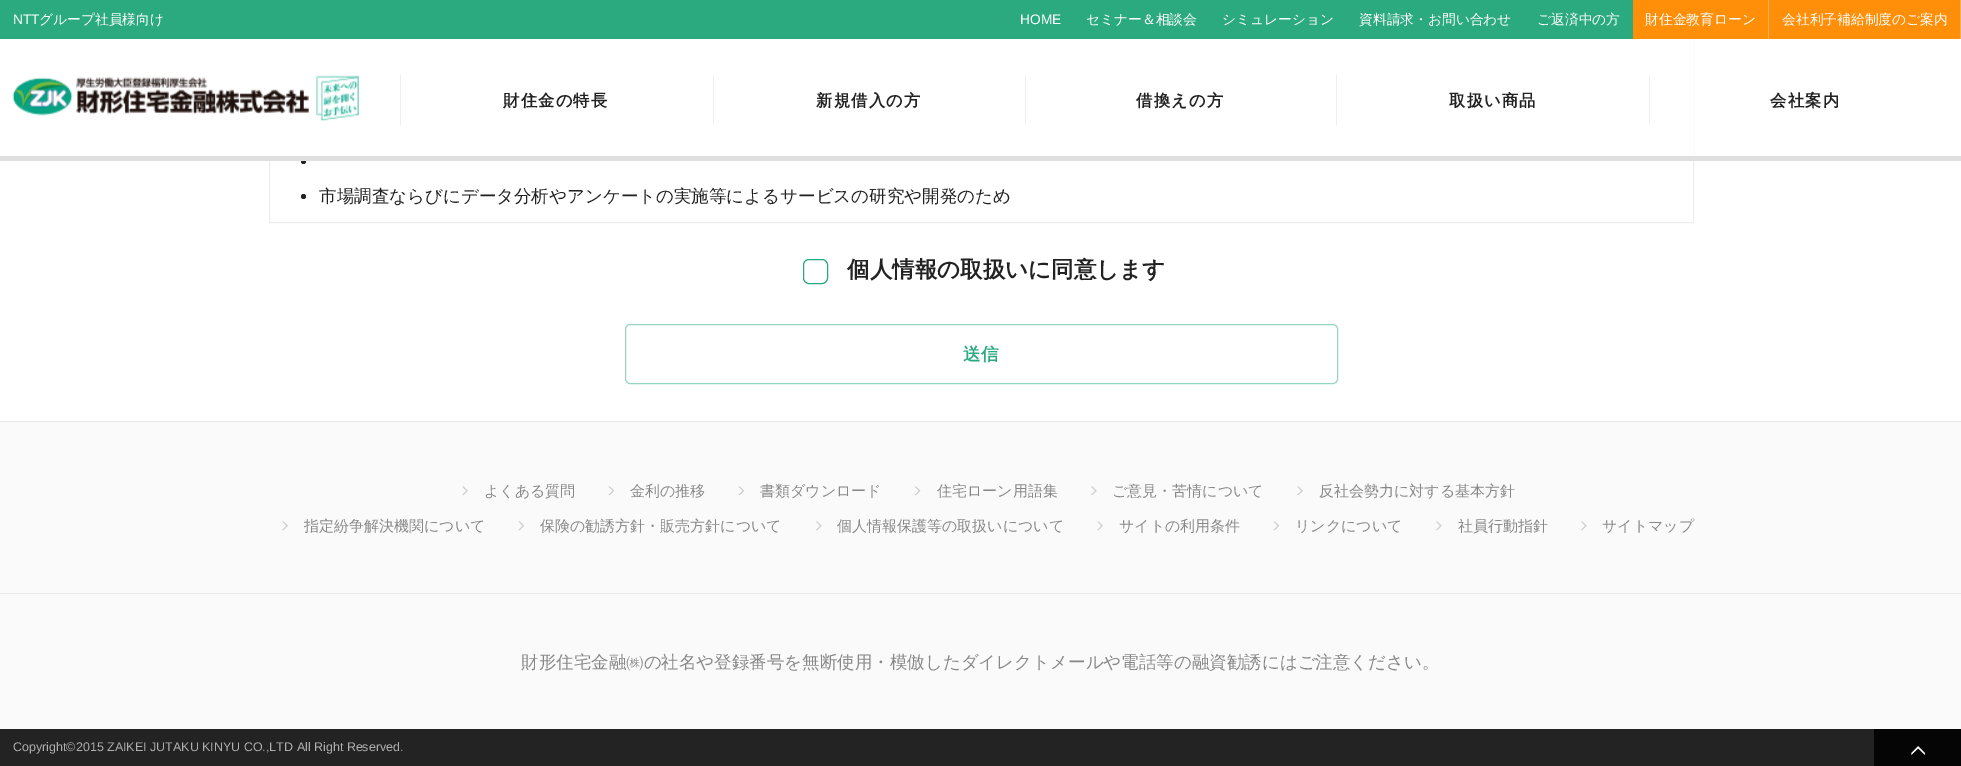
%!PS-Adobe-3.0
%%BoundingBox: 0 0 1961 766
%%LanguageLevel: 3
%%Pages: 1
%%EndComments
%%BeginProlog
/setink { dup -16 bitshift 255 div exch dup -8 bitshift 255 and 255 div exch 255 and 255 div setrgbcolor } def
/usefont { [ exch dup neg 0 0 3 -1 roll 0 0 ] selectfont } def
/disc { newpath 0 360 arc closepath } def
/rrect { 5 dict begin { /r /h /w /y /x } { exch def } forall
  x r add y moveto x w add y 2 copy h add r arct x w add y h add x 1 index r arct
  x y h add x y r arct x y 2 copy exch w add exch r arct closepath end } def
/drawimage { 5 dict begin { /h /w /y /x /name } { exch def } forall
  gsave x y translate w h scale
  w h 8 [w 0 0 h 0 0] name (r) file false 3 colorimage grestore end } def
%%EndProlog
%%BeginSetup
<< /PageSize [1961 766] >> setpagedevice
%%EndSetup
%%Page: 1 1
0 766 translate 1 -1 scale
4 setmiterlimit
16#FFFFFF setink
0 0 1961 766 rectfill
16#EEEEEE setink
269.5 -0.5 1424 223 rectstroke
16#2CAA7F setink
0 0 1633 39 rectfill
/LiberationSans-Regular 13.75 usefont
16#FFFFFF setink
13 24 moveto (NTT) show
/WenQuanYiZenHei-Medium 13.75 usefont
39 24 moveto (グループ社員様向け) show
/LiberationSans-Regular 13.75 usefont
1020 24 moveto (HOME) show
/WenQuanYiZenHei-Medium 13.75 usefont
[
    [(セミナー＆相談会) 1086 24]
    [(シミュレーション) 1222 24]
    [(資料請求・お問い合わせ) 1359 24]
    [(ご返済中の方) 1537 24]
] { aload pop moveto show } forall
16#FF8F09 setink
1633 0 135 39 rectfill
16#FFB153 setink
1768 0 1 39 rectfill
16#FFFFFF setink
1645 24 moveto (財住金教育ローン) show
16#FF8F09 setink
1769 0 191 39 rectfill
16#FFB153 setink
1960 0 1 39 rectfill
16#FFFFFF setink
1782 24 moveto (会社利子補給制度のご案内) show
269 39 1425 117 rectfill
(img1.raw) 12 75 347 46 drawimage
16#222222 setink
303.5 161.5 2.5 disc fill
16#DFDFDF setink
0 156 1961 5 rectfill
16#EEEEEE setink
400 75 1 50 rectfill
/WenQuanYiZenHei-Bold 16.25 usefont
16#222222 setink
503 106 moveto 1.25 0 (財住金の特長) ashow
16#EEEEEE setink
713 75 1 50 rectfill
16#222222 setink
816 106 moveto 1.25 0 (新規借入の方) ashow
16#EEEEEE setink
1025 75 1 50 rectfill
16#222222 setink
1136 106 moveto 1.25 0 (借換えの方) ashow
16#EEEEEE setink
1336 75 1 50 rectfill
16#222222 setink
1449 106 moveto 1.25 0 (取扱い商品) ashow
16#EEEEEE setink
1649 75 1 50 rectfill
16#222222 setink
1770 106 moveto 1.25 0 (会社案内) ashow
303.5 196.5 2.5 disc fill
/WenQuanYiZenHei-Medium 17.5 usefont
319 202 moveto (市場調査ならびにデータ分析やアンケートの実施等によるサービスの研究や開発のため) show
16#2CAA7F setink
803.5 259.5 24 24 5.5 rrect stroke
/WenQuanYiZenHei-Bold 22.5 usefont
16#222222 setink
847 277 moveto (個人情報の取扱いに同意します) show
16#96D5BF setink
625.5 324.5 712 59 4.5 rrect stroke
/WenQuanYiZenHei-Bold 17.5 usefont
16#2CAA7F setink
963 360 moveto (送信) show
16#FAFAFA setink
0 422 1961 307 rectfill
16#E9E9E9 setink
0 421 1961 1 rectfill
(img2.raw) 462 486 6 10 drawimage
/WenQuanYiZenHei-Medium 15 usefont
16#888888 setink
484 496 moveto (よくある質問) show
(img3.raw) 608 486 6 10 drawimage
630 496 moveto (金利の推移) show
(img3.raw) 738 486 6 10 drawimage
760 496 moveto (書類ダウンロード) show
(img4.raw) 914 486 7 10 drawimage
937 496 moveto (住宅ローン用語集) show
(img5.raw) 1091 486 6 10 drawimage
1112 496 moveto (ご意見・苦情について) show
(img2.raw) 1297 486 6 10 drawimage
1319 496 moveto (反社会勢力に対する基本方針) show
(img2.raw) 282 521 6 10 drawimage
304 531 moveto (指定紛争解決機関について) show
(img3.raw) 518 521 6 10 drawimage
540 531 moveto (保険の勧誘方針・販売方針について) show
(img5.raw) 816 521 6 10 drawimage
837 531 moveto (個人情報保護等の取扱いについて) show
(img2.raw) 1097 521 6 10 drawimage
1119 531 moveto (サイトの利用条件) show
(img3.raw) 1273 521 6 10 drawimage
1295 531 moveto (リンクについて) show
(img5.raw) 1436 521 6 10 drawimage
1458 531 moveto (社員行動指針) show
(img5.raw) 1581 521 6 10 drawimage
1602 531 moveto (サイトマップ) show
16#E9E9E9 setink
0 593 1961 1 rectfill
/WenQuanYiZenHei-Medium 17.5 usefont
16#888888 setink
521 668 moveto (財形住宅金融㈱の社名や登録番号を無断使用・模倣したダイレクトメールや電話等の融資勧誘にはご注意ください。) show
16#232323 setink
0 729 1874 37 rectfill
/LiberationSans-Regular 12.5 usefont
16#AFAFAF setink
13 751 moveto (Copyright©2015 ZAIKEI JUTAKU KINYU CO.,LTD All Right Reserved.) show
16#050505 setink
1874 729 87 37 rectfill
(img6.raw) 1911 746 14 9 drawimage
showpage
%%EOF
